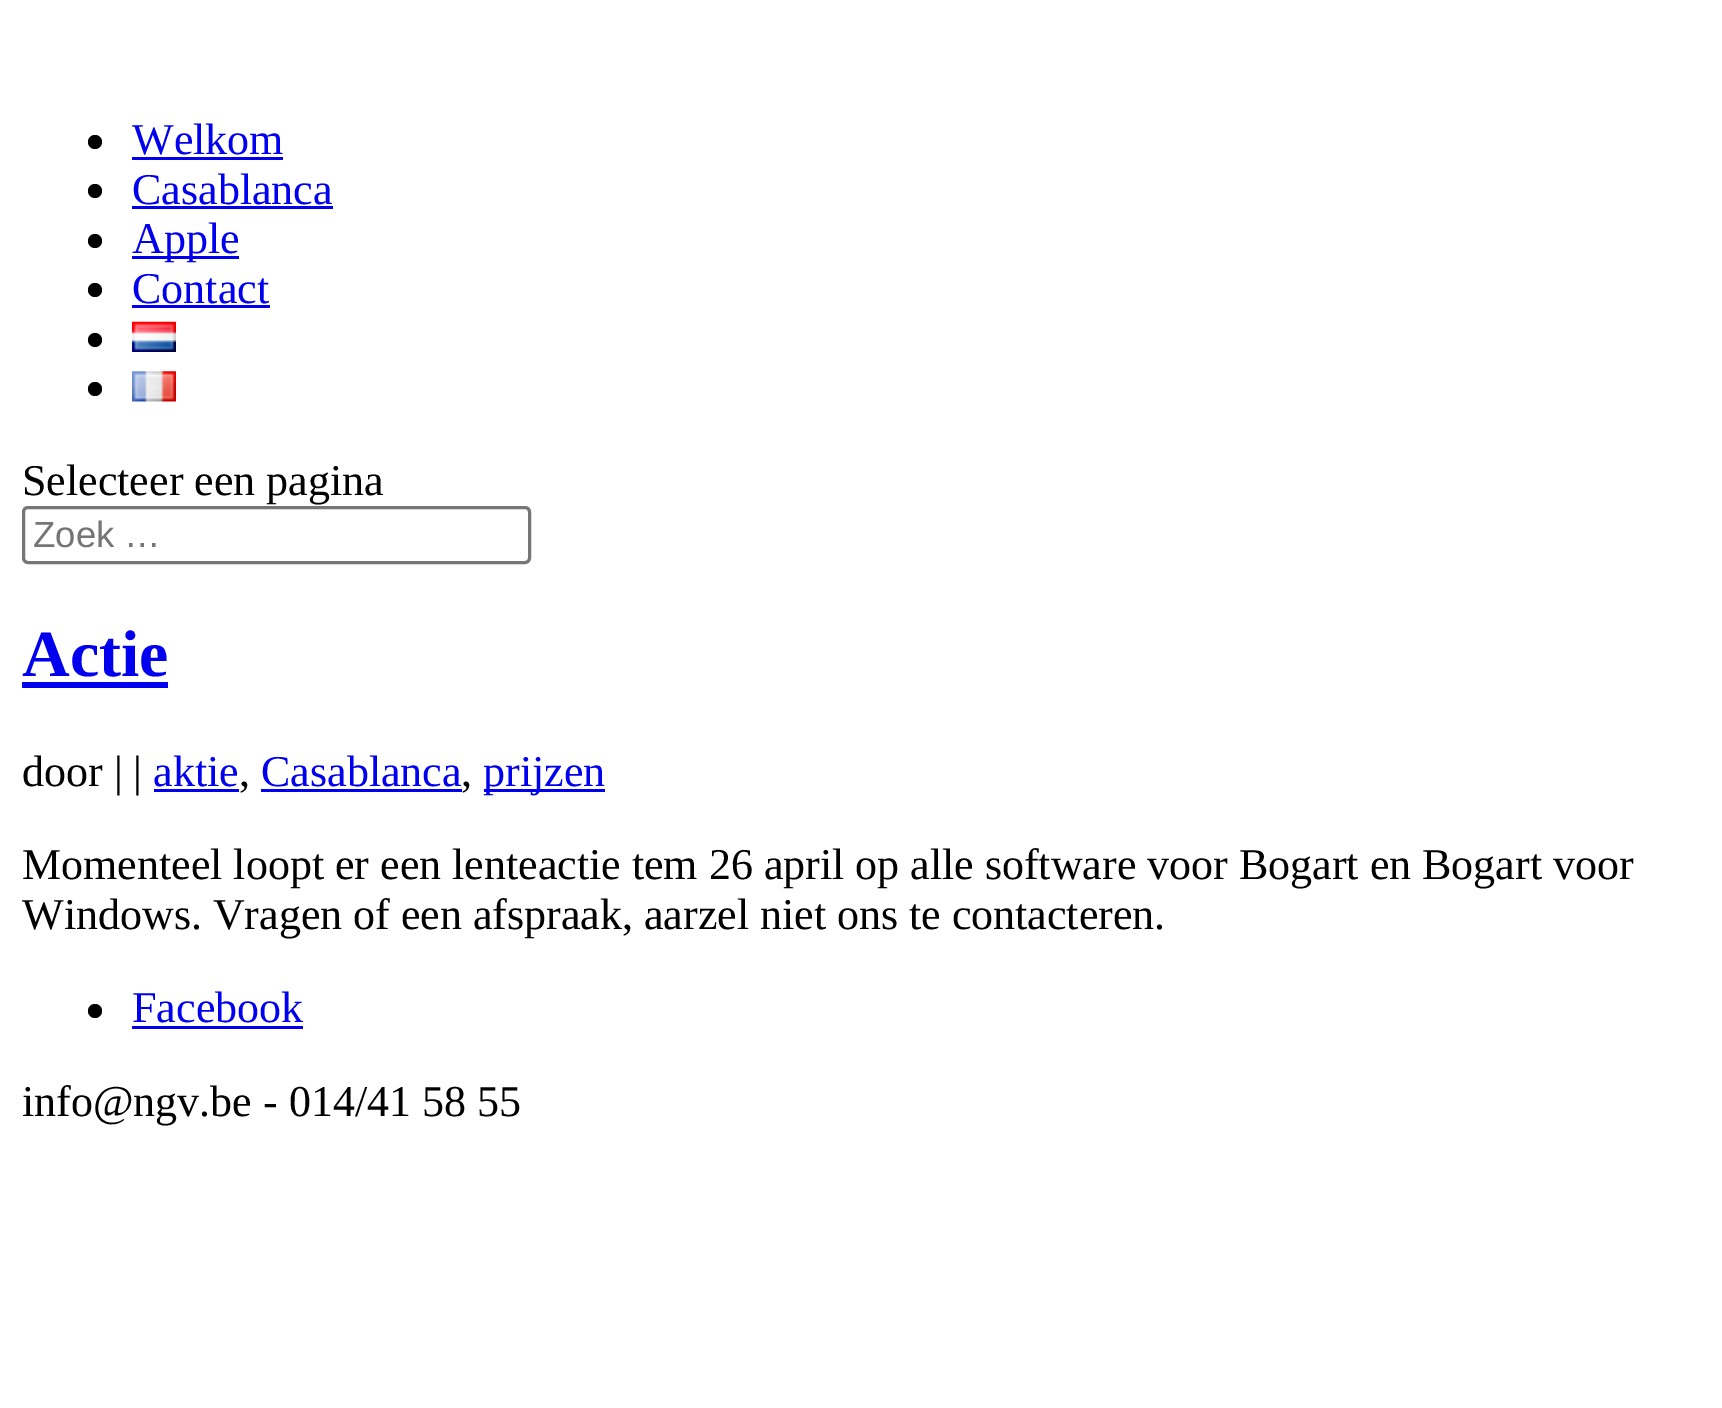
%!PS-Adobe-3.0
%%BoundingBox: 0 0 1722 1408
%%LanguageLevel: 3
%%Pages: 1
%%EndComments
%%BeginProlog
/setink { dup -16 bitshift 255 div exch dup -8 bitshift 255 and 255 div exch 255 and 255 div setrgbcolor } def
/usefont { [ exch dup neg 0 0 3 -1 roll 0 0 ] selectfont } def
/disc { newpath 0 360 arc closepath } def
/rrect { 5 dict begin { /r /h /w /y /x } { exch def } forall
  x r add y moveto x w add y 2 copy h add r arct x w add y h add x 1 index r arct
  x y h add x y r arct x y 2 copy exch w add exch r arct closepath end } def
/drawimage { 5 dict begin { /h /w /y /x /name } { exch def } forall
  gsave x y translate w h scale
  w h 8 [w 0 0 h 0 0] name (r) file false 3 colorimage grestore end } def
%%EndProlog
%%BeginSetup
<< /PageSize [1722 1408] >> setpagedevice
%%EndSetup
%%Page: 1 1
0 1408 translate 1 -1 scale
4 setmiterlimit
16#FFFFFF setink
0 0 1722 1408 rectfill
16#000000 setink
95 142 7 disc fill
/LiberationSerif-Regular 44 usefont
16#0000EE setink
132 154 moveto (Welkom) show
132 157 151 3 rectfill
16#000000 setink
95 191 7 disc fill
16#0000EE setink
132 204 moveto (Casablanca) show
132 206 201 3 rectfill
16#000000 setink
95 241 7 disc fill
16#0000EE setink
132 256 107 3 rectfill
132 253 moveto (Apple) show
16#000000 setink
95 290 7 disc fill
16#0000EE setink
132 303 moveto (Contact) show
132 305 138 3 rectfill
16#000000 setink
95 340 7 disc fill
(img1.raw) 132 321 44 31 drawimage
95 389 7 disc fill
(img2.raw) 132 371 44 31 drawimage
22 495 moveto (Selecteer een pagina) show
16#767676 setink
3 setlinewidth
23.5 507.5 506 55 4.5 rrect stroke
/LiberationSans-Regular 36.5 usefont
16#757575 setink
33 547 moveto (Zoek …) show
/LiberationSerif-Bold 66 usefont
16#0000EE setink
22 676 moveto (Actie) show
22 682 146 6 rectfill
/LiberationSerif-Regular 44 usefont
16#000000 setink
22 786 moveto (door | |) show
16#0000EE setink
153 786 moveto (aktie) show
154 789 85 3 rectfill
16#000000 setink
239 786 moveto (,) show
16#0000EE setink
261 786 moveto (Casablanca) show
261 789 201 3 rectfill
16#000000 setink
461 786 moveto (,) show
16#0000EE setink
484 789 121 3 rectfill
483 786 moveto (prijzen) show
16#000000 setink
22 879 moveto (Momenteel loopt er een lenteactie tem 26 april op alle software voor Bogart en Bogart voor) show
22 929 moveto (Windows. Vragen of een afspraak, aarzel niet ons te contacteren.) show
95 1011 7 disc fill
16#0000EE setink
132 1022 moveto (Facebook) show
132 1026 171 3 rectfill
16#000000 setink
22 1116 moveto (info@ngv.be - 014/41 58 55) show
showpage
%%EOF
